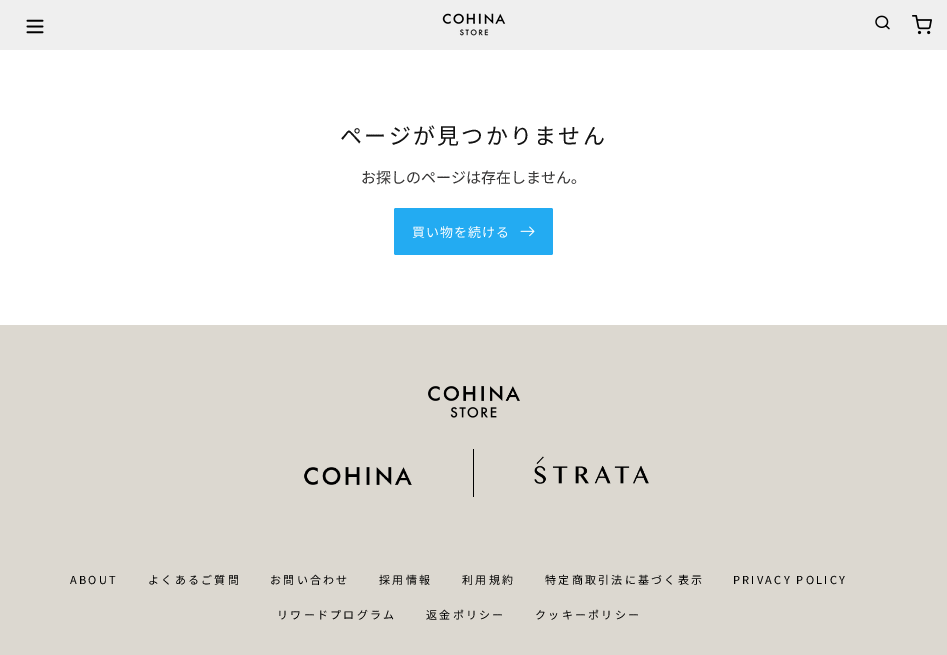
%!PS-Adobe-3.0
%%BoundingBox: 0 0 947 655
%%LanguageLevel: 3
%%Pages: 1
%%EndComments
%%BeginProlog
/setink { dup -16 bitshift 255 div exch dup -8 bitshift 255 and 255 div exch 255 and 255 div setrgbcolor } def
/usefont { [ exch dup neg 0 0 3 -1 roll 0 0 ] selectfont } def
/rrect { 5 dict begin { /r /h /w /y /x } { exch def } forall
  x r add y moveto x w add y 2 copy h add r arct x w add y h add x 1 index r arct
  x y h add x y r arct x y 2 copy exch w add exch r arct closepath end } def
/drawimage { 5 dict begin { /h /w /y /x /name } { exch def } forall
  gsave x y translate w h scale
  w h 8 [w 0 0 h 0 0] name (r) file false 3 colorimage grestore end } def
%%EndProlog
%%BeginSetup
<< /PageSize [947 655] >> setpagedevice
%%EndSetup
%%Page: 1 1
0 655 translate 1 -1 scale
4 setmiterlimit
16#FFFFFF setink
0 0 947 655 rectfill
16#EFEFEF setink
0 0 947 50 rectfill
(img1.raw) 26 19 18 15 drawimage
(img2.raw) 442 13 64 23 drawimage
(img3.raw) 875 15 15 15 drawimage
(img4.raw) 912 15 20 20 drawimage
/NotoSansJP-Regular 22 usefont
16#121212 setink
340 144 moveto 2.25 0 (ページが見つかりません) ashow
/NotoSansJP-Regular 15 usefont
16#333232 setink
361 183 moveto (お探しのページは存在しません。) show
16#23ABF2 setink
394 208 159 47 2 rrect fill
/NotoSansJP-Regular 13 usefont
16#FFFFFF setink
412 237 moveto 1 0 (買い物を続ける) ashow
(img5.raw) 520 226 15 11 drawimage
16#DCD8D0 setink
0 325 947 330 rectfill
(img6.raw) 428 386 92 15 drawimage
(img7.raw) 450 407 47 11 drawimage
(img8.raw) 304 467 108 18 drawimage
16#000000 setink
473 449 1 48 rectfill
(img9.raw) 534 456 115 28 drawimage
/NotoSansJP-Regular 11 usefont
70 584 moveto 2.25 0 (ABOUT) ashow
148 584 moveto 2.25 0 (よくあるご質問) ashow
270 584 moveto 2.25 0 (お問い合わせ) ashow
379 584 moveto 2.25 0 (採用情報) ashow
462 584 moveto 2.25 0 (利用規約) ashow
545 584 moveto 2.25 0 (特定商取引法に基づく表示) ashow
733 584 moveto 2.25 0 (PRIVACY POLICY) ashow
277 619 moveto 2.25 0 (リワードプログラム) ashow
426 619 moveto 2.25 0 (返金ポリシー) ashow
535 619 moveto 2.25 0 (クッキーポリシー) ashow
showpage
%%EOF
